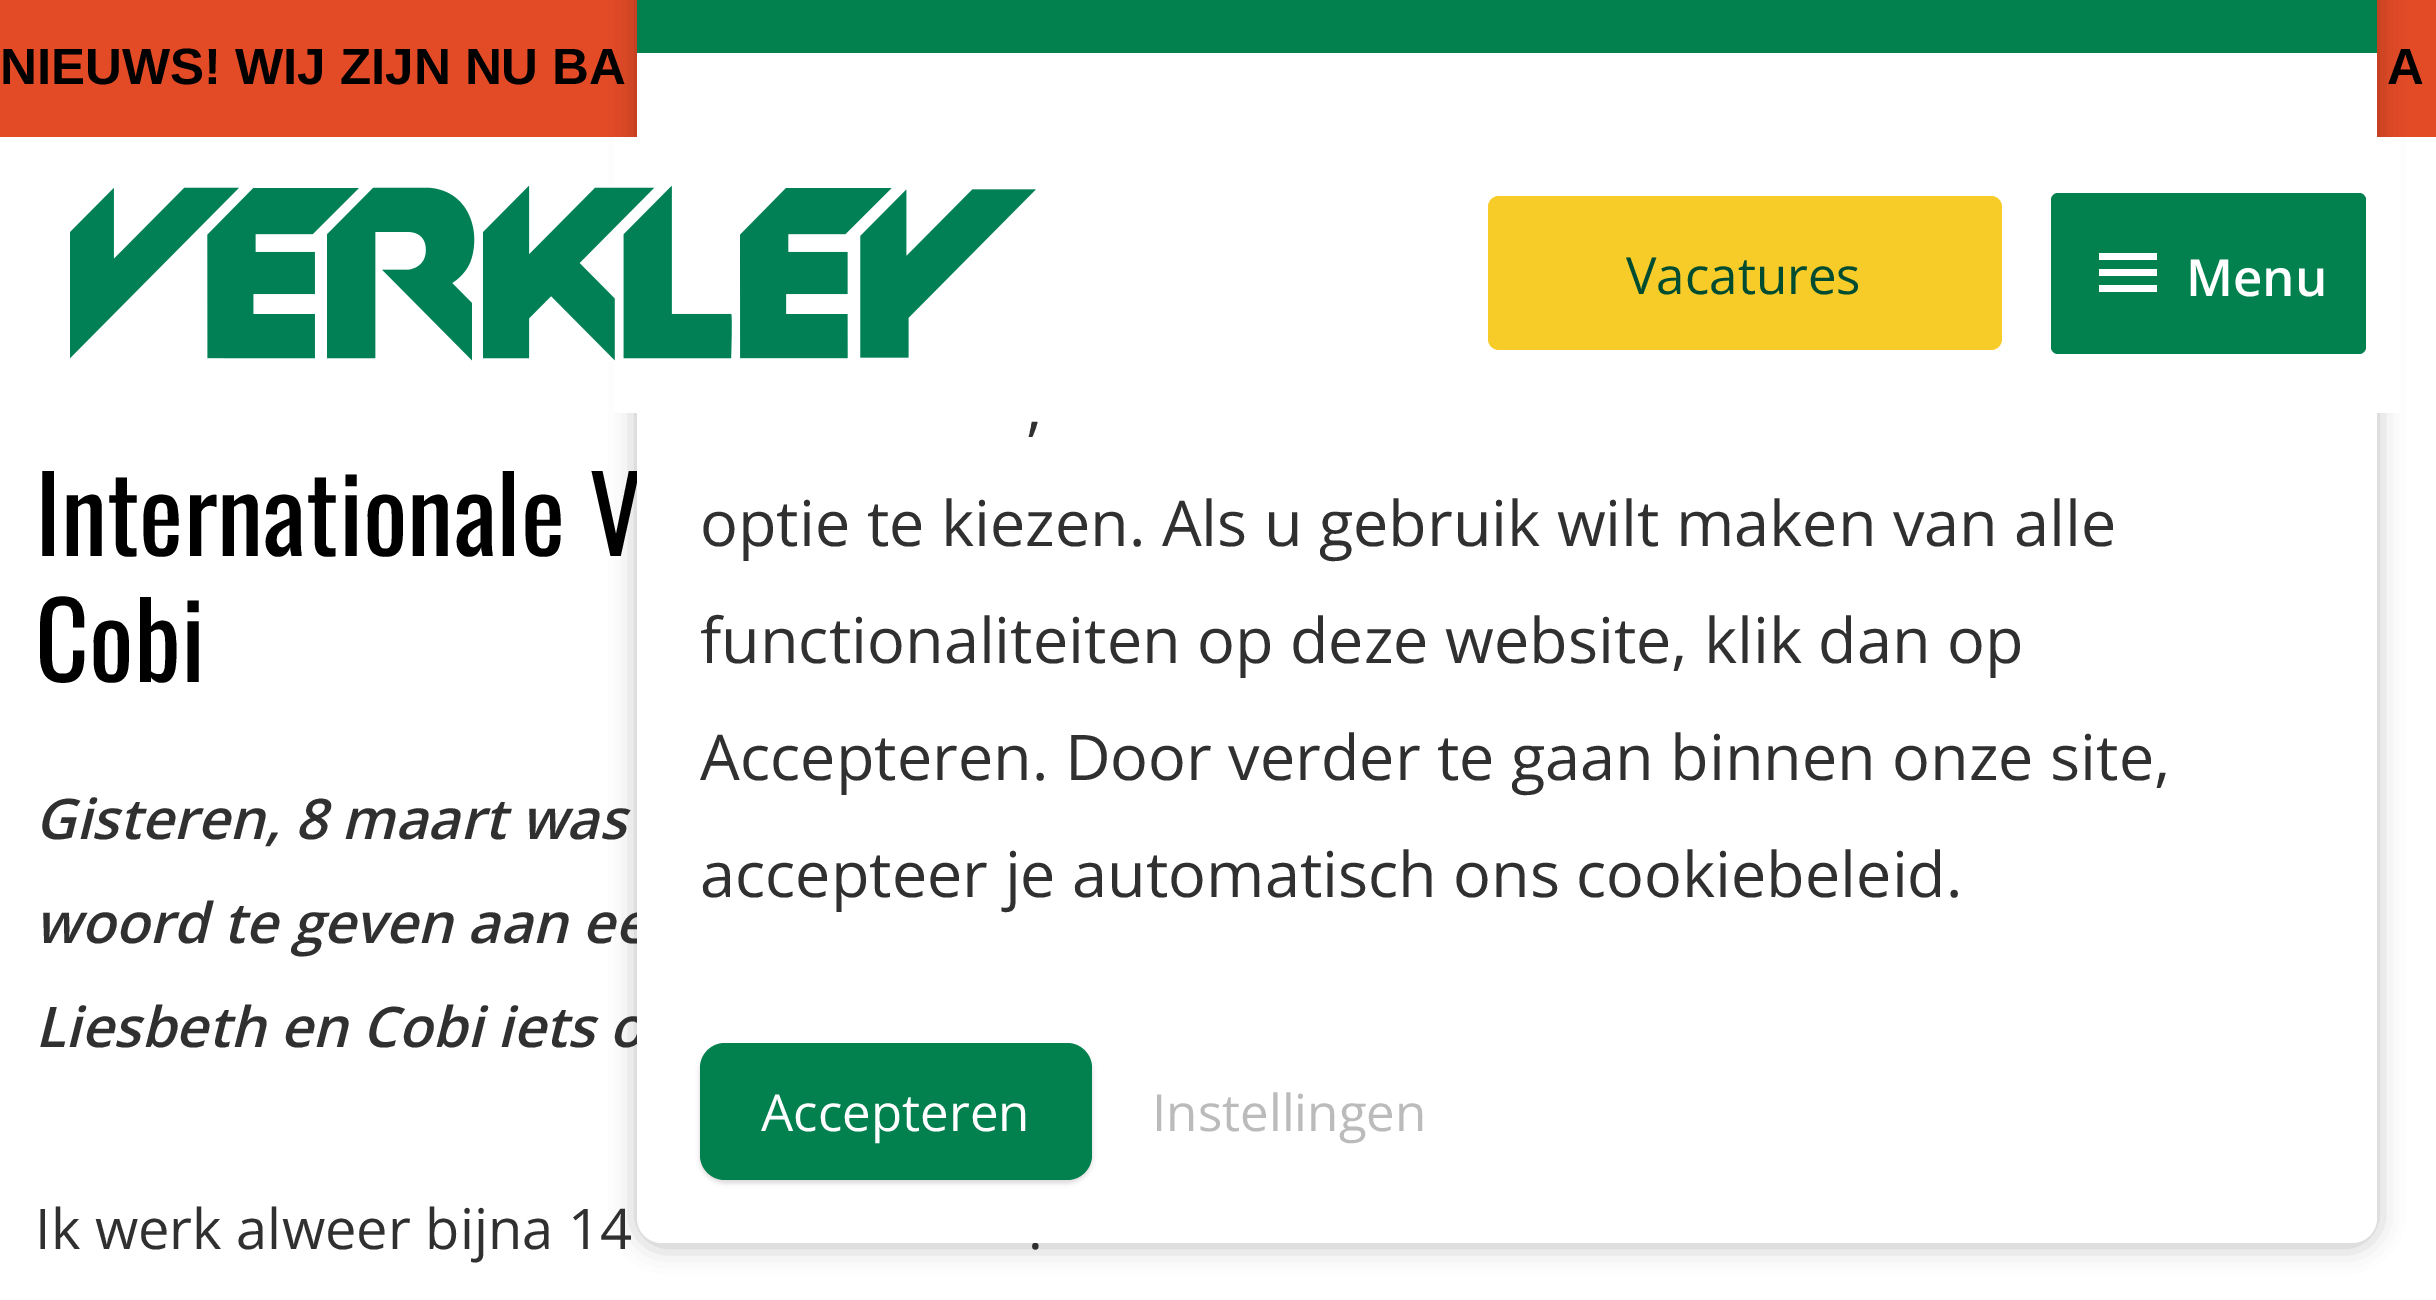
%!PS-Adobe-3.0
%%BoundingBox: 0 0 2436 1300
%%LanguageLevel: 3
%%Pages: 1
%%EndComments
%%BeginProlog
/setink { dup -16 bitshift 255 div exch dup -8 bitshift 255 and 255 div exch 255 and 255 div setrgbcolor } def
/usefont { [ exch dup neg 0 0 3 -1 roll 0 0 ] selectfont } def
/setalpha { dup .setfillconstantalpha .setstrokeconstantalpha } def
/rrect { 5 dict begin { /r /h /w /y /x } { exch def } forall
  x r add y moveto x w add y 2 copy h add r arct x w add y h add x 1 index r arct
  x y h add x y r arct x y 2 copy exch w add exch r arct closepath end } def
/softshadow { 12 dict begin { /a /b /q /h /w /y /x } { exch def } forall gsave /was 0 def
  9 -2 -9 { dup b mul 4 div /e exch def 1 sub .425 mul 2.718 exch exp 1 add a .99 .min exch div /now exch def
    1 1 now sub 1 was sub div sub setalpha /was now def
    w h .min e 2 mul add 0 gt { x e sub y e sub w e 2 mul add h e 2 mul add
      q e add b .6 mul add w h .min 2 div e add .min 0 .max rrect fill } if } for grestore end } def
/drawimage { 5 dict begin { /h /w /y /x /name } { exch def } forall
  gsave x y translate w h scale
  w h 8 [w 0 0 h 0 0] name (r) file false 3 colorimage grestore end } def
%%EndProlog
%%BeginSetup
<< /PageSize [2436 1300] /PageUsesTransparency true >> setpagedevice
%%EndSetup
%%Page: 1 1
0 .pushpdf14devicefilter
0 1300 translate 1 -1 scale
4 setmiterlimit
16#FFFFFF setink
0 0 2436 1300 rectfill
16#E24B26 setink
0 0 2436 137 rectfill
/LiberationSans-Bold 51 usefont
16#000000 setink
0 84 moveto (NIEUWS! WIJ ZIJN NU BA) show
2387 84 moveto (A) show
637 -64 1740 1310 25 13 0.25 softshadow
/Oswald-Regular 105 usefont
35 556 moveto (Internationale V) show
/OpenSans-SemiBoldItalic 56 usefont
16#303030 setink
35 943 moveto (woord te geven aan ee) show
35 1047 moveto (Liesbeth en Cobi iets o) show
/OpenSans-Regular 56 usefont
1028 1249 moveto (.) show
16#FFFFFF setink
637 -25 1740 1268 25 rrect fill
614 137 1786 276 rectfill
(img1.raw) 70 186 966 175 drawimage
16#F7CC29 setink
1488 196 514 154 11 rrect fill
/OpenSans-Regular 51 usefont
16#004C30 setink
1626 294 moveto (Vacatures) show
16#02814E setink
2051 193 315 161 7 rrect fill
16#FFFFFF setink
2099 253 moveto 2157 253 lineto 2157 260 lineto 2099 260 lineto closepath 2099 276 moveto 2099 269 lineto 2157 269 lineto 2157 276 lineto closepath 2099 292 moveto 2099 285 lineto 2157 285 lineto 2157 292 lineto closepath fill
/OpenSans-SemiBold 51 usefont
2186 296 moveto (Menu) show
/Oswald-Regular 105 usefont
16#000000 setink
35 682 moveto (Cobi) show
/OpenSans-SemiBoldItalic 56 usefont
16#303030 setink
35 839 moveto (Gisteren, 8 maart was) show
/OpenSans-Regular 56 usefont
35 1249 moveto (Ik werk alweer bijna 14) show
16#02814E setink
637 0 1740 53 rectfill
/OpenSans-Regular 63 usefont
16#303030 setink
[
    [(,) 1026 429]
    [(optie te kiezen. Als u gebruik wilt maken van alle) 700 546]
    [(functionaliteiten op deze website, klik dan op) 700 663]
    [(Accepteren. Door verder te gaan binnen onze site,) 700 780]
    [(accepteer je automatisch ons cookiebeleid.) 700 897]
] { aload pop moveto show } forall
16#000000 setink
700 1047 392 136 25 2.5 0.15 softshadow
16#02814E setink
700 1043 392 137 25 rrect fill
/OpenSans-Regular 51 usefont
16#FFFFFF setink
761 1131 moveto (Accepteren) show
16#BBBBBB setink
1152 1131 moveto (Instellingen) show
.poppdf14devicefilter showpage
%%EOF
